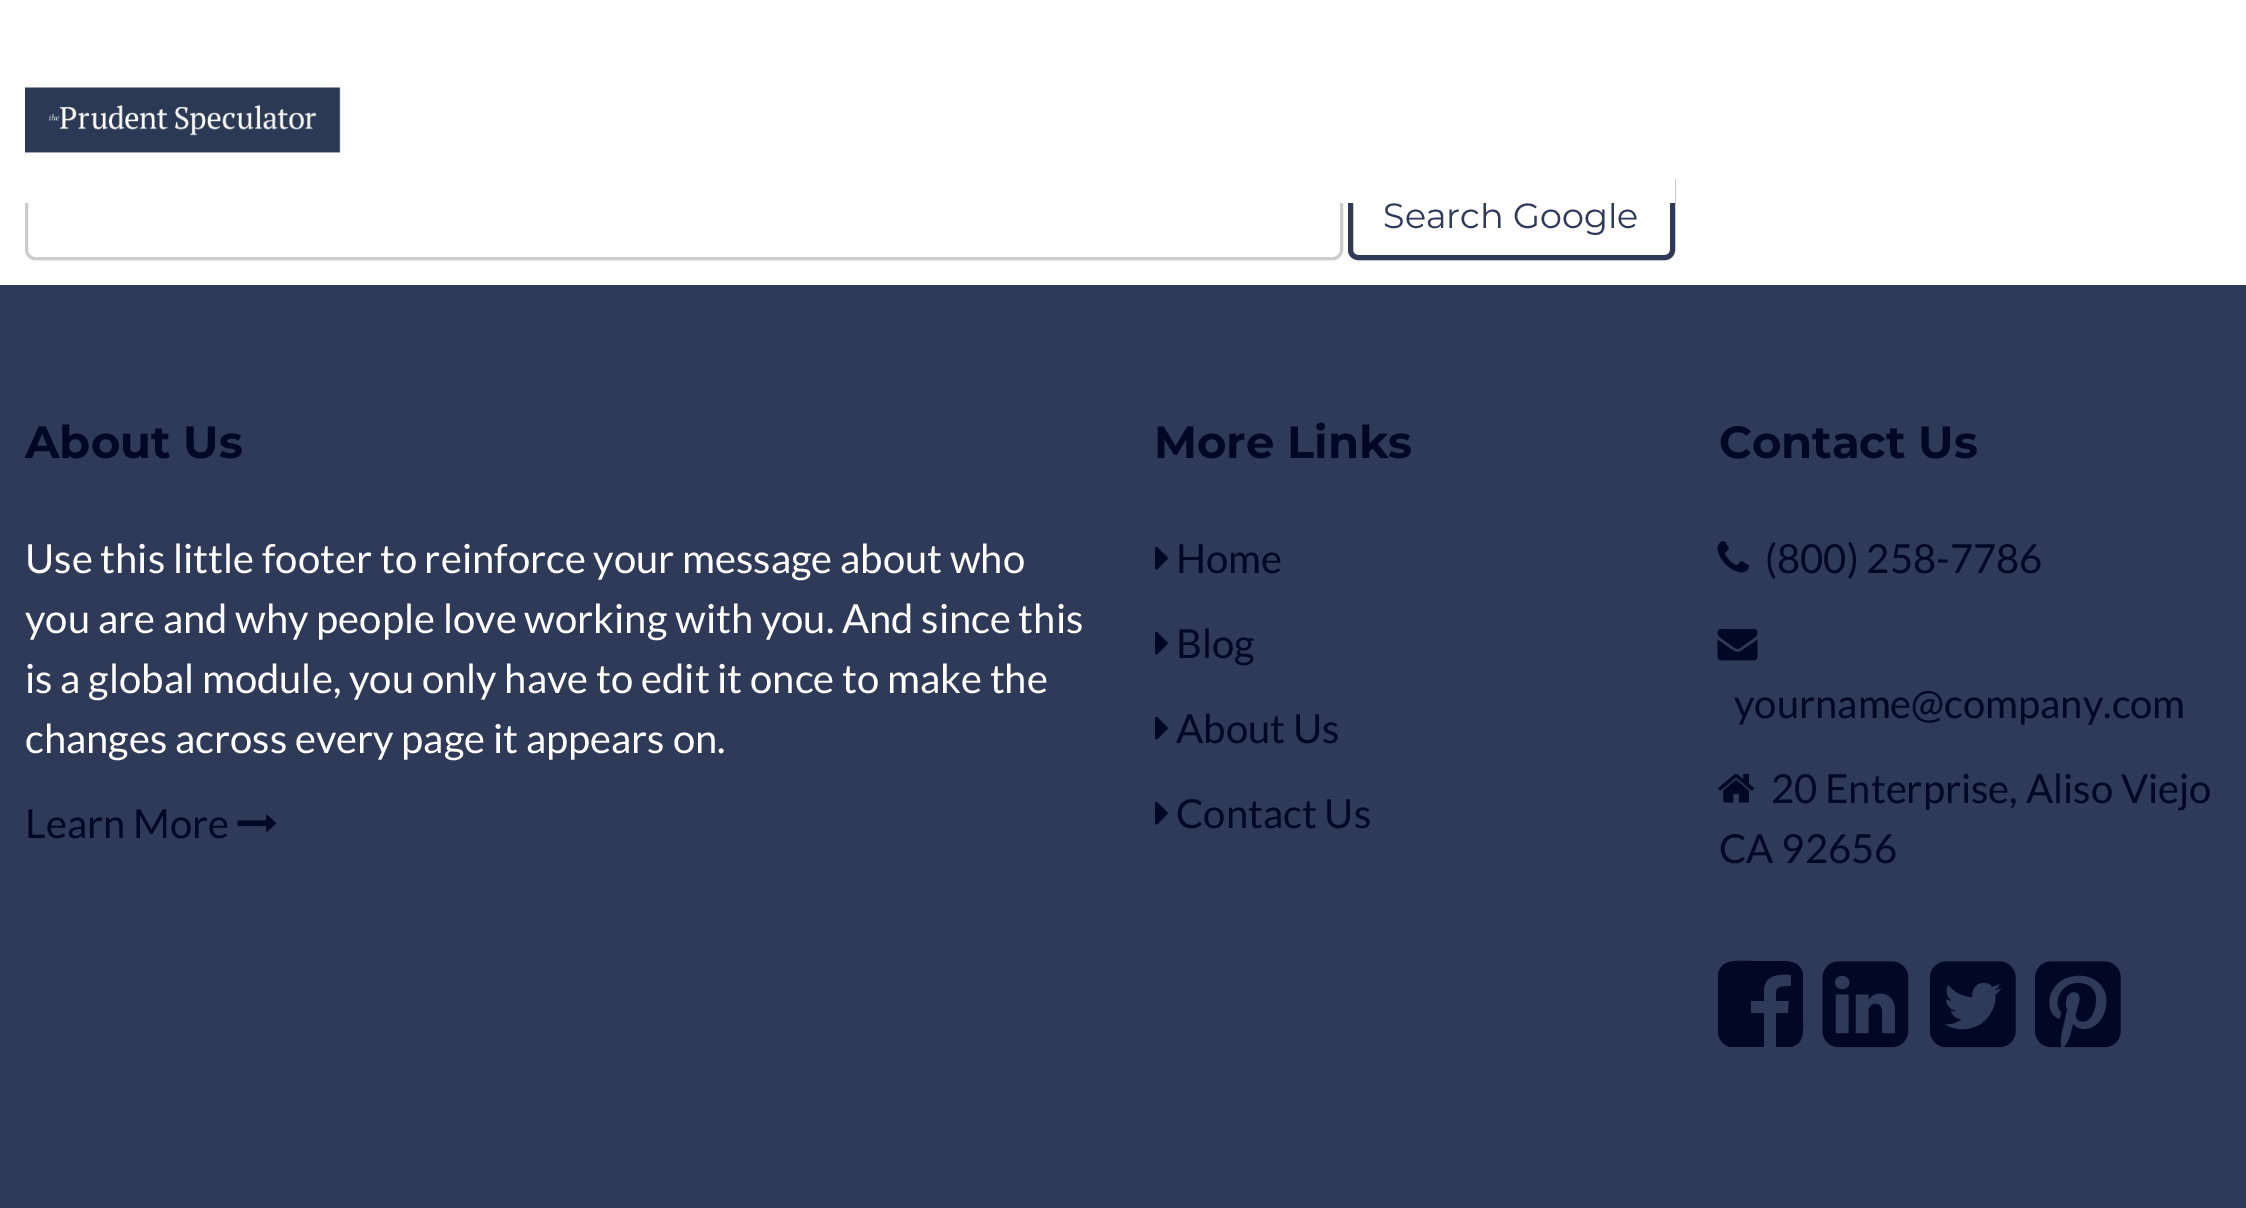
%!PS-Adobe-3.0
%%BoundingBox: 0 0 2246 1208
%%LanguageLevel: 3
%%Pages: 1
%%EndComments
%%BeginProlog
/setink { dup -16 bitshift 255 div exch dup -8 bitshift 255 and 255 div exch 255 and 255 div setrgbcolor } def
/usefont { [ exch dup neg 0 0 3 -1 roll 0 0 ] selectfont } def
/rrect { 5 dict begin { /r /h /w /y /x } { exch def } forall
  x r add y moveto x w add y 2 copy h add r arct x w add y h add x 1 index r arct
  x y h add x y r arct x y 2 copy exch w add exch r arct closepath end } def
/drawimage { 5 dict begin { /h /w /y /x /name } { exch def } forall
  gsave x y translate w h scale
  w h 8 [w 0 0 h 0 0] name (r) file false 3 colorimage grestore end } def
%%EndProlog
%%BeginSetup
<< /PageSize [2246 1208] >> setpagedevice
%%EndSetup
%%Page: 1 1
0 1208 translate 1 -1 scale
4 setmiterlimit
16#FFFFFF setink
0 0 2246 1208 rectfill
16#CCCCCC setink
3 setlinewidth
26.5 171.5 1315 87 8.5 rrect stroke
16#2E3A57 setink
5 setlinewidth
1350.5 172.5 322 85 7.5 rrect stroke
/Montserrat-Regular 35 usefont
1383 228 moveto (Search Google) show
16#FFFFFF setink
25 170 1650 33 rectfill
(img1.raw) 25 87 316 66 drawimage
16#2E3A57 setink
0 285 2246 923 rectfill
/Montserrat-Bold 45 usefont
16#000825 setink
25 458 moveto (About Us) show
/Lato-Regular 40 usefont
16#FFFFFF setink
[
    [(Use this little footer to reinforce your message about who) 25 573]
    [(you are and why people love working with you. And since this) 25 633]
    [(is a global module, you only have to edit it once to make the) 25 693]
    [(changes across every page it appears on.) 25 753]
] { aload pop moveto show } forall
16#000825 setink
25 838 moveto (Learn More) show
(img2.raw) 237 814 39 18 drawimage
/Montserrat-Bold 45 usefont
1154 458 moveto (More Links) show
(img3.raw) 1155 546 13 24 drawimage
/Lato-Regular 40 usefont
1176 573 moveto (Home) show
(img3.raw) 1155 631 13 24 drawimage
1176 658 moveto (Blog) show
(img3.raw) 1155 716 13 24 drawimage
1176 743 moveto (About Us) show
(img3.raw) 1155 801 13 24 drawimage
1176 828 moveto (Contact Us) show
/Montserrat-Bold 45 usefont
1719 458 moveto (Contact Us) show
(img4.raw) 1717 541 32 32 drawimage
/Lato-Regular 40 usefont
1765 573 moveto (\(800\) 258-7786) show
(img5.raw) 1717 629 41 32 drawimage
1734 718 moveto (yourname@company.com) show
(img6.raw) 1718 774 36 29 drawimage
1771 803 moveto (20 Enterprise, Aliso Viejo) show
1719 863 moveto (CA 92656) show
1718 1031 moveto 1718 974 lineto 1721 958 1740 961 1751 961 curveto 1778 961 lineto 1789 961 1800 961 1803 974 curveto 1803 1022 lineto 1803 1033 1804 1044 1790 1047 curveto 1776 1047 lineto 1776 1013 lineto 1788 1013 lineto 1789 1001 lineto 1776 1001 lineto 1776 986 1776 987 1791 986 curveto 1791 975 lineto 1780 974 1766 974 1764 988 curveto 1764 1001 lineto 1751 1001 lineto 1751 1013 lineto 1764 1013 lineto 1764 1047 lineto 1730 1047 lineto 1723 1045 1718 1039 1718 1031 curveto closepath fill
(img7.raw) 1822 961 87 87 drawimage
(img8.raw) 1930 961 86 87 drawimage
(img9.raw) 2035 961 86 87 drawimage
showpage
%%EOF
